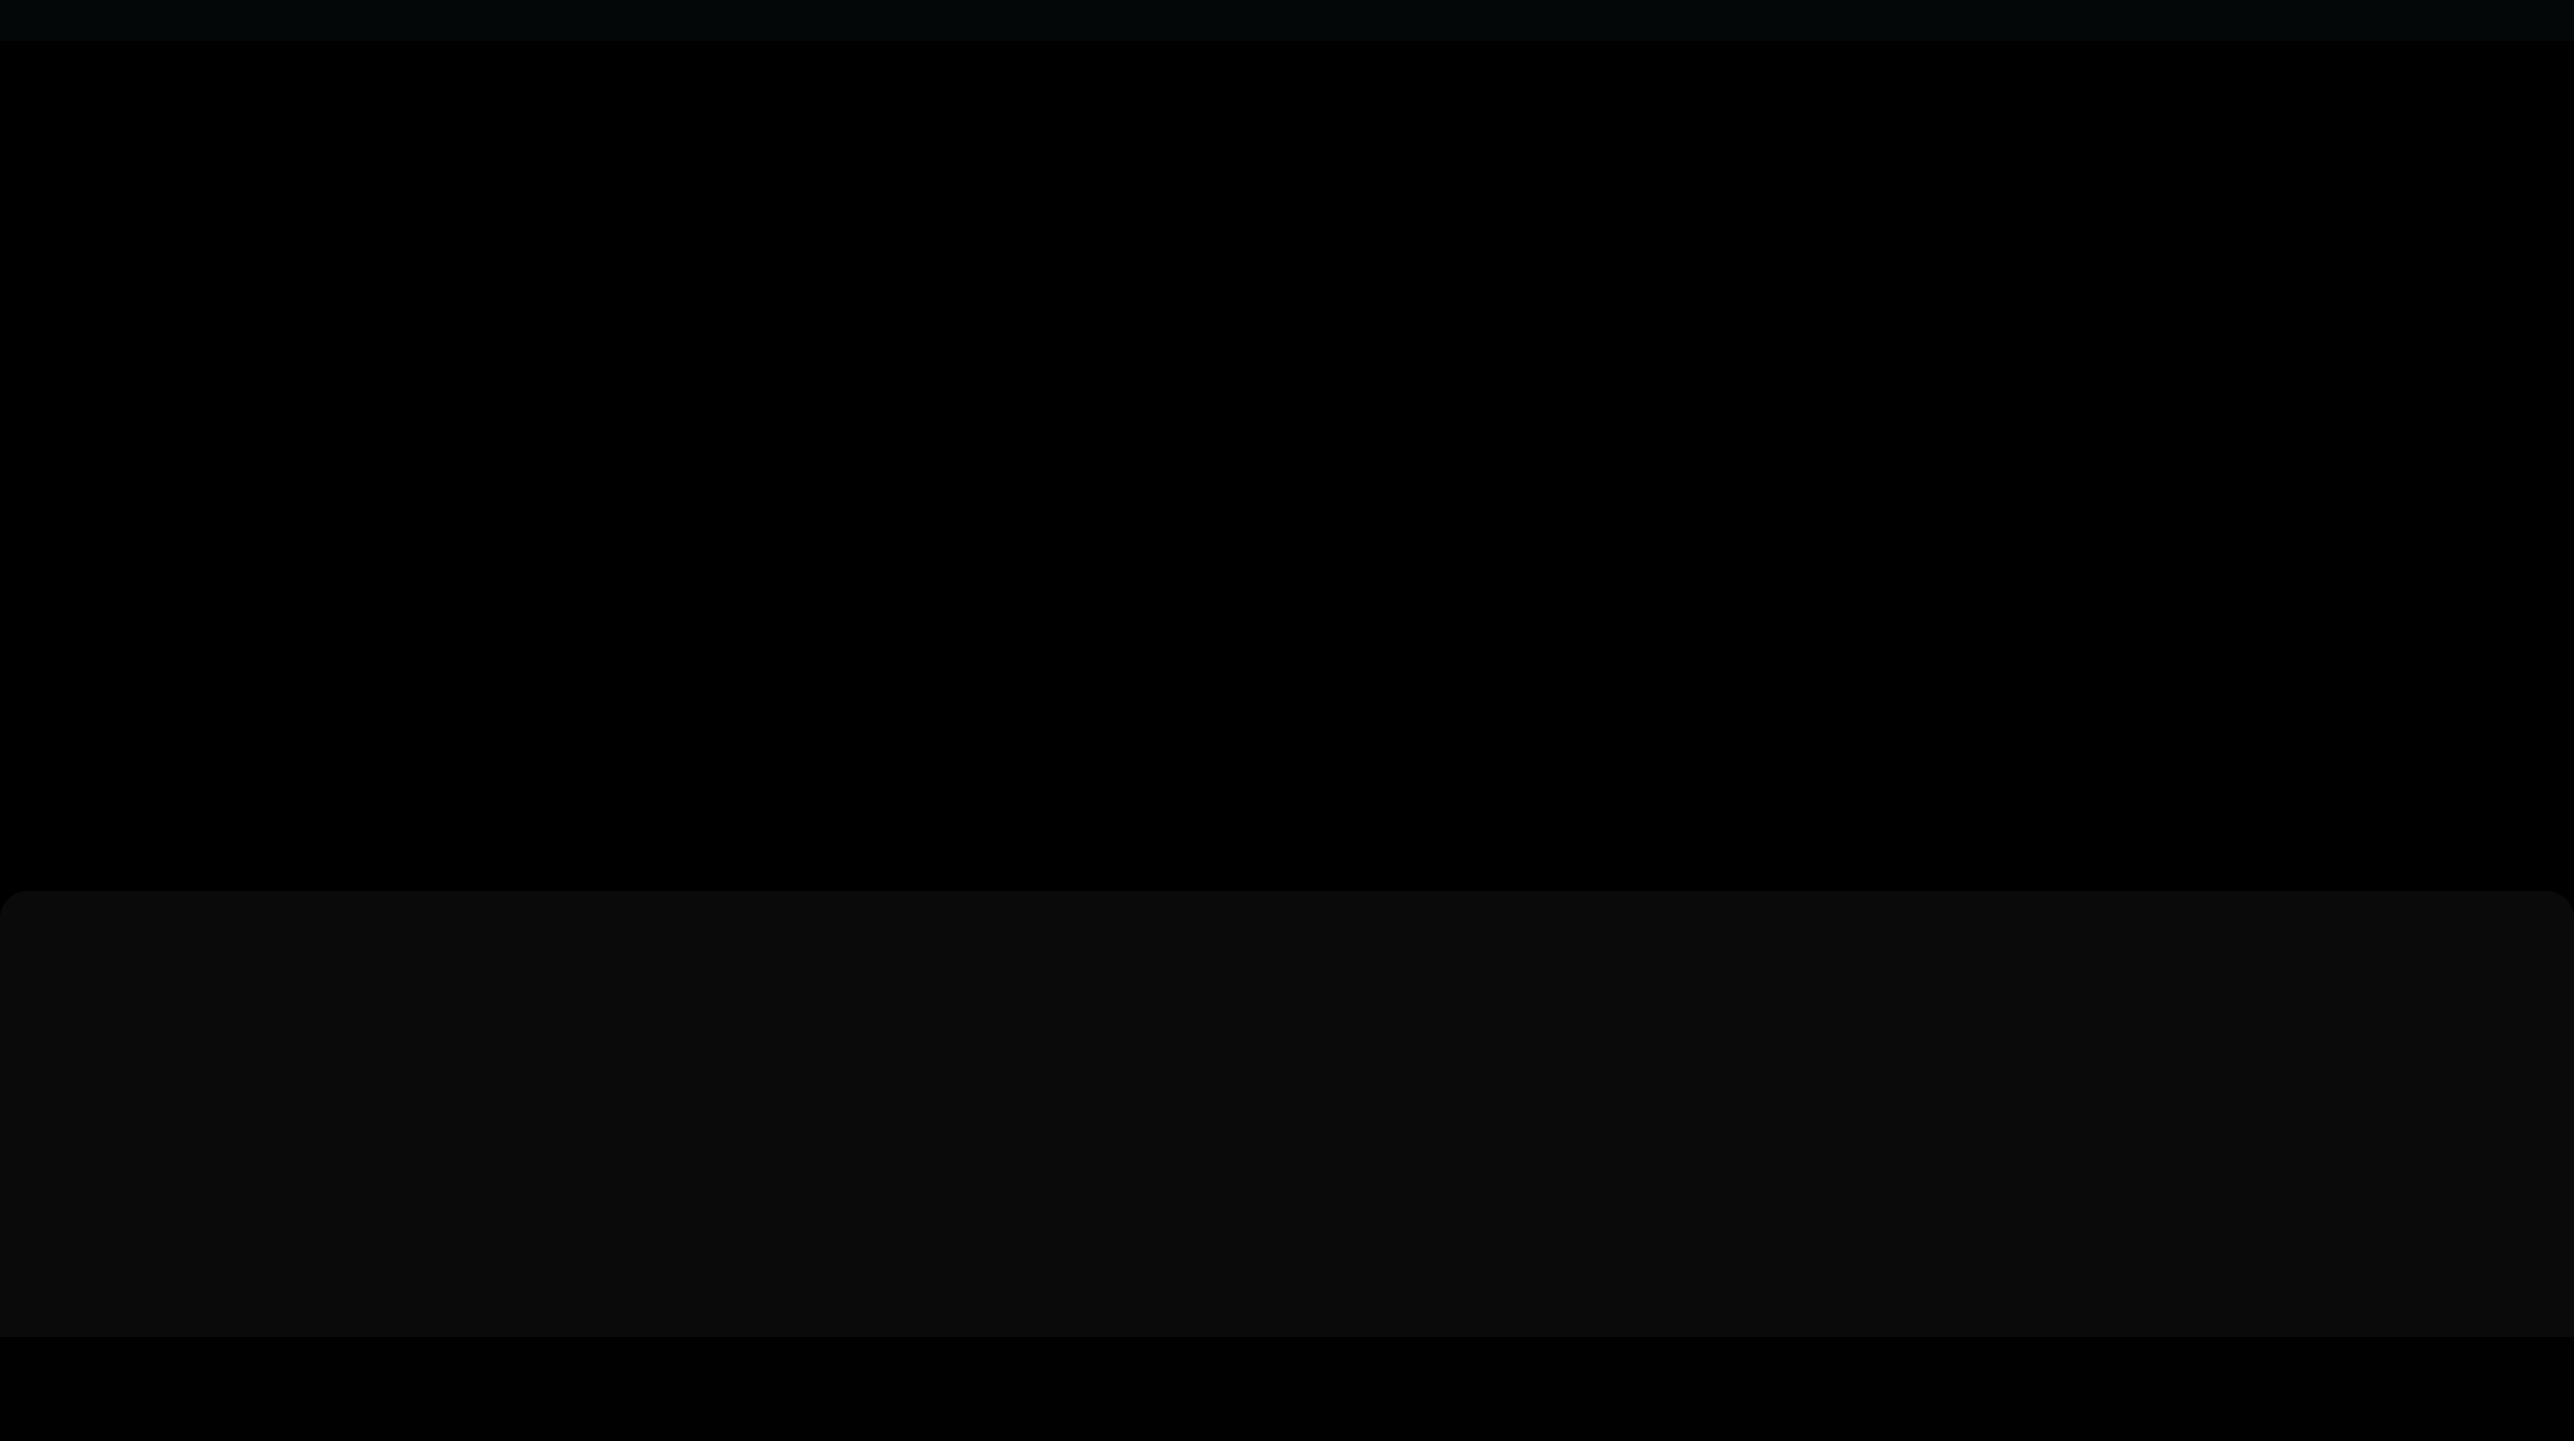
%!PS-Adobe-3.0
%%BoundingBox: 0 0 2574 1441
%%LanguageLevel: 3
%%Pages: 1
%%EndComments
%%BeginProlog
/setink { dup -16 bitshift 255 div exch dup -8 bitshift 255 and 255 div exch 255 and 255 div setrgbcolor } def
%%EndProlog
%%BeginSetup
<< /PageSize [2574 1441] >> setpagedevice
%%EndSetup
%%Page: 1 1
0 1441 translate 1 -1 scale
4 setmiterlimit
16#000000 setink
0 0 2574 1441 rectfill
16#040708 setink
0 0 2574 41 rectfill
16#0A0A0A setink
28 891 moveto 2546 891 lineto 2561.5 891 2574 903.5 2574 919 curveto 2574 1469 lineto 0 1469 lineto 0 919 lineto 0 903.5 12.5 891 28 891 curveto closepath fill
16#010101 setink
0 1337 2574 104 rectfill
showpage
%%EOF
